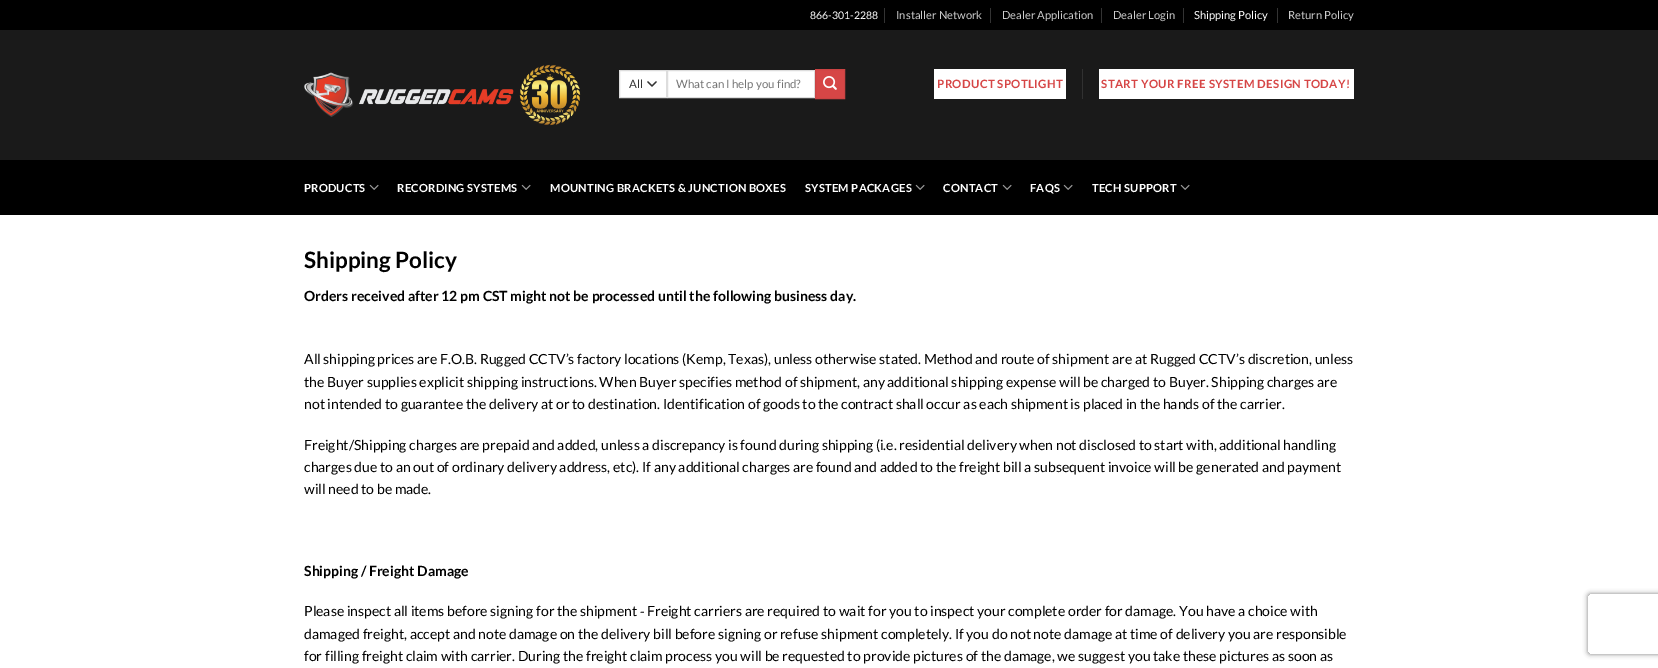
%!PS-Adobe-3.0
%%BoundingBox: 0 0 1658 668
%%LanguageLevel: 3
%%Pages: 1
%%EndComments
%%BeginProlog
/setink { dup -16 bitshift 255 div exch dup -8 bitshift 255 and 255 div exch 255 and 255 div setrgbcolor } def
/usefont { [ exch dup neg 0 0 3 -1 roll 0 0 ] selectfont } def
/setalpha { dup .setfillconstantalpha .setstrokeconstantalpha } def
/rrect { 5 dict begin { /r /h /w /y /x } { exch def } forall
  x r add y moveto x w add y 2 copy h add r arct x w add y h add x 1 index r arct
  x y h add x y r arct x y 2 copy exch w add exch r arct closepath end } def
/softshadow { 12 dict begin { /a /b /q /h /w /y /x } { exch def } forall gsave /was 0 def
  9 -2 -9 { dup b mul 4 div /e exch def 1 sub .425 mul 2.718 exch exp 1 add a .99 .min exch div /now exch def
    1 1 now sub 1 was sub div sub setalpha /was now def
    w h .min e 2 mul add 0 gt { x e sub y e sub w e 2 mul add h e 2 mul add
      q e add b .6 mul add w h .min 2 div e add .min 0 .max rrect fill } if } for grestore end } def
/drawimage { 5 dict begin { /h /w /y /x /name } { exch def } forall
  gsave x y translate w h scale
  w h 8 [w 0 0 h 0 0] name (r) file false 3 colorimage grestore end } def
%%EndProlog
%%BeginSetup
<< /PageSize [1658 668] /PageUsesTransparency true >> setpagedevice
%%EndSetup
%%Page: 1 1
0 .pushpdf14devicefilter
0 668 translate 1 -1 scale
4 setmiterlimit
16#FFFFFF setink
0 0 1658 668 rectfill
16#000000 setink
0 0 1658 30 rectfill
/Lato-Regular 10.5 usefont
16#FFFFFF setink
810 19 moveto (866-301-2288) show
16#333333 setink
884 8 1 15 rectfill
/Lato-Regular 11.2 usefont
16#CCCCCC setink
896 19 moveto (Installer Network) show
16#333333 setink
990 8 1 15 rectfill
16#CCCCCC setink
1002 19 moveto (Dealer Application) show
16#333333 setink
1101 8 1 15 rectfill
16#CCCCCC setink
1113 19 moveto (Dealer Login) show
16#333333 setink
1183 8 1 15 rectfill
16#FFFFFF setink
1194 19 moveto (Shipping Policy) show
16#333333 setink
1277 8 1 15 rectfill
16#CCCCCC setink
1288 19 moveto (Return Policy) show
16#1A1A1A setink
0 30 1658 130 rectfill
(img1.raw) 304 64 277 62 drawimage
16#FFFFFF setink
620 71 46 26 rectfill
16#333333 setink
1.3 setlinewidth
1 setlinecap
1 setlinejoin
648 82 moveto 652 86 lineto 656 82 lineto stroke
16#DDDDDD setink
1 setlinewidth
0 setlinecap
0 setlinejoin
619.5 70.5 47 27 rectstroke
/Lato-Regular 11.5 usefont
16#333333 setink
629 88 moveto (All) show
16#FFFFFF setink
667.5 70.5 moveto 814.5 70.5 lineto 814.5 97.5 lineto 667.5 97.5 lineto closepath gsave fill grestore
16#DDDDDD setink
stroke
gsave
676 77 125 13 rectclip
16#757575 setink
676 88 moveto (What can I help you find?) show
grestore
16#D64646 setink
815.5 69.5 moveto 844.5 69.5 lineto 844.5 98.5 lineto 815.5 98.5 lineto closepath gsave fill grestore
16#CB4343 setink
stroke
(img2.raw) 823 76 14 14 drawimage
16#FFFFFF setink
934 69 132 30 rectfill
/Lato-Bold 11.5 usefont
16#D64646 setink
937 88 moveto 0.35 0 (PRODUCT SPOTLIGHT) ashow
16#313131 setink
1082 69 1 30 rectfill
16#FFFFFF setink
1099 69 255 30 rectfill
16#D64646 setink
1101 88 moveto 0.35 0 (START YOUR FREE SYSTEM DESIGN TODAY!) ashow
16#000000 setink
0 160 1658 55 rectfill
/Lato-Bold 11.2 usefont
16#FFFFFF setink
304 192 moveto 0.2 0 (PRODUCTS) ashow
(img3.raw) 369 184 10 6 drawimage
397 192 moveto 0.2 0 (RECORDING SYSTEMS) ashow
(img3.raw) 521 184 10 6 drawimage
550 192 moveto 0.2 0 (MOUNTING BRACKETS & JUNCTION BOXES) ashow
805 192 moveto 0.2 0 (SYSTEM PACKAGES) ashow
(img3.raw) 915 184 10 6 drawimage
943 192 moveto 0.2 0 (CONTACT) ashow
(img3.raw) 1002 184 10 6 drawimage
1030 192 moveto 0.2 0 (FAQS) ashow
(img3.raw) 1063 184 10 6 drawimage
1092 192 moveto 0.2 0 (TECH SUPPORT) ashow
(img3.raw) 1180 184 10 6 drawimage
/Lato-Bold 22.5 usefont
16#000000 setink
304 268 moveto (Shipping Policy) show
/Lato-Bold 14 usefont
304 301 moveto (Orders received after 12 pm CST might not be processed until the following business day.) show
/Lato-Regular 14 usefont
[
    [(All shipping prices are F.O.B. Rugged CCTV’s factory locations \(Kemp, Texas\), unless otherwise stated. Method and route of shipment are at Rugged CCTV’s discretion, unless) 304 364]
    [(the Buyer supplies explicit shipping instructions. When Buyer specifies method of shipment, any additional shipping expense will be charged to Buyer. Shipping charges are) 304 387]
    [(not intended to guarantee the delivery at or to destination. Identification of goods to the contract shall occur as each shipment is placed in the hands of the carrier.) 304 409]
    [(Freight/Shipping charges are prepaid and added, unless a discrepancy is found during shipping \(i.e. residential delivery when not disclosed to start with, additional handling) 304 450]
    [(charges due to an out of ordinary delivery address, etc\). If any additional charges are found and added to the freight bill a subsequent invoice will be generated and payment) 304 472]
    [(will need to be made.) 304 494]
] { aload pop moveto show } forall
/Lato-Bold 14 usefont
304 576 moveto (Shipping / Freight Damage) show
/Lato-Regular 14 usefont
304 616 moveto (Please inspect all items before signing for the shipment) show
/LiberationSans-Regular 14 usefont
640 616 moveto (‐) show
/Lato-Regular 14 usefont
[
    [(Freight carriers are required to wait for you to inspect your complete order for damage. You have a choice with) 647 616]
    [(damaged freight, accept and note damage on the delivery bill before signing or refuse shipment completely. If you do not note damage at time of delivery you are responsible) 304 639]
    [(for filling freight claim with carrier. During the freight claim process you will be requested to provide pictures of the damage, we suggest you take these pictures as soon as) 304 661]
] { aload pop moveto show } forall
gsave
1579 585 moveto 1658 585 lineto 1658 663 lineto 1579 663 lineto closepath 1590 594 moveto 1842 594 lineto 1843 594 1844 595 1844 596 curveto 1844 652 lineto 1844 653 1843 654 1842 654 curveto 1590 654 lineto 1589 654 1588 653 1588 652 curveto 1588 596 lineto 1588 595 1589 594 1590 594 curveto closepath eoclip newpath
16#808080 setink
1588 594 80 60 2 2.5 1 softshadow
grestore
.poppdf14devicefilter showpage
%%EOF
